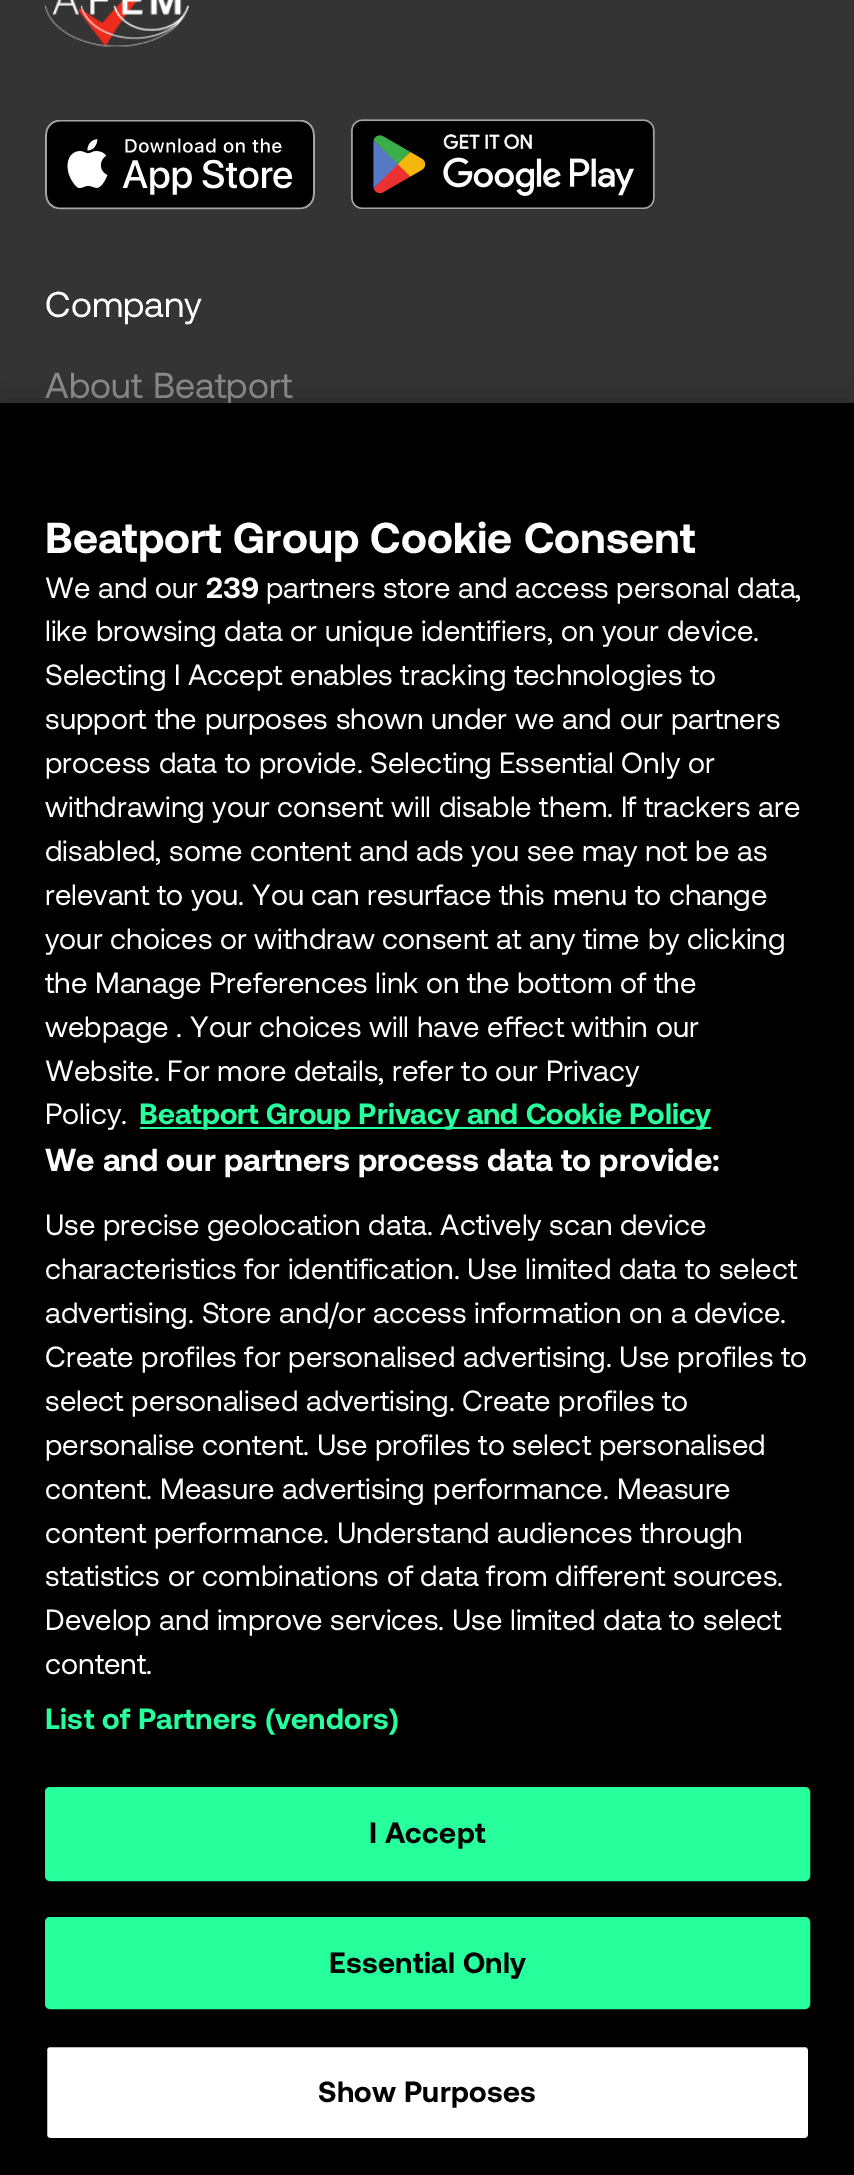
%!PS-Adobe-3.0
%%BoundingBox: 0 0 854 2175
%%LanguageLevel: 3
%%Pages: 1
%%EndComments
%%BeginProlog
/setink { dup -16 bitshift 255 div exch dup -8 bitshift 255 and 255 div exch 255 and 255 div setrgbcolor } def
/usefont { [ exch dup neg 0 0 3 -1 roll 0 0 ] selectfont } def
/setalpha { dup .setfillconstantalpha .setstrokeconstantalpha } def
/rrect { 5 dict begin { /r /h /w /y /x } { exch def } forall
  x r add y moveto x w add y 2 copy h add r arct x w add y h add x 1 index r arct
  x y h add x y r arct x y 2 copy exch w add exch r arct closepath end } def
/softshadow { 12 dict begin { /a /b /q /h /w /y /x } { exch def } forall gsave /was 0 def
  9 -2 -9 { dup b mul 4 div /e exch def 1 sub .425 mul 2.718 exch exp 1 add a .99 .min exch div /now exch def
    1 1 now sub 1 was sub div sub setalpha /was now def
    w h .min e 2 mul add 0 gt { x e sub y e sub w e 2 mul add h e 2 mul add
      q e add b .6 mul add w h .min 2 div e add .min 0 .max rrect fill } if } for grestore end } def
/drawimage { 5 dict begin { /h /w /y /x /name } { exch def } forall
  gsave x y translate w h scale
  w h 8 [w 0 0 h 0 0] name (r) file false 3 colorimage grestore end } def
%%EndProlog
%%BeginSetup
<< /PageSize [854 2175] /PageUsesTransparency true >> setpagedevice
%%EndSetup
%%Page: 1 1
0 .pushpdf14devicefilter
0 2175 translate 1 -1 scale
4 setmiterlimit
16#343434 setink
0 0 854 2175 rectfill
(img1.raw) 45 0 144 47 drawimage
(img2.raw) 45 120 270 90 drawimage
(img3.raw) 351 119 304 90 drawimage
/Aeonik-Regular 36 usefont
16#FFFFFF setink
45 317 moveto (Company) show
16#8C8C8C setink
45 398 moveto 1 0 32 (About Beatport) widthshow
16#000000 setink
0 403 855 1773 0 20 0.2 softshadow
0 403 854 1772 rectfill
/Aeonik-Bold 43.25 usefont
16#FFFFFF setink
45 553 moveto 0.5 0 32 (Beatport Group Cookie Consent) widthshow
/Aeonik-Regular 29.25 usefont
45 598 moveto (We and our) show
/Aeonik-Bold 29.25 usefont
206 598 moveto (239) show
/Aeonik-Regular 29.25 usefont
[
    [(partners store and access personal data,) 266 598]
    [(like browsing data or unique identifiers, on your device.) 45 641]
    [(Selecting I Accept enables tracking technologies to) 45 685]
] { aload pop moveto show } forall
45 729 moveto 0.25 0 32 (support the purposes shown under we and our partners) widthshow
[
    [(process data to provide. Selecting Essential Only or) 45 773]
    [(withdrawing your consent will disable them. If trackers are) 45 817]
    [(disabled, some content and ads you see may not be as) 45 861]
    [(relevant to you. You can resurface this menu to change) 45 905]
    [(your choices or withdraw consent at any time by clicking) 45 949]
    [(the Manage Preferences link on the bottom of the) 45 993]
    [(webpage . Your choices will have effect within our) 45 1037]
    [(Website. For more details, refer to our Privacy) 45 1081]
    [(Policy.) 45 1124]
] { aload pop moveto show } forall
16#27FF9C setink
140 1127 571 2 rectfill
/Aeonik-Bold 29.25 usefont
139 1124 moveto (Beatport Group Privacy and Cookie Policy) show
/Aeonik-Bold 31.7 usefont
16#FFFFFF setink
45 1171 moveto (We and our partners process data to provide:) show
/Aeonik-Regular 29.25 usefont
[
    [(Use precise geolocation data. Actively scan device) 45 1235]
    [(characteristics for identification. Use limited data to select) 45 1279]
    [(advertising. Store and/or access information on a device.) 45 1323]
    [(Create profiles for personalised advertising. Use profiles to) 45 1367]
    [(select personalised advertising. Create profiles to) 45 1411]
    [(personalise content. Use profiles to select personalised) 45 1455]
] { aload pop moveto show } forall
45 1499 moveto 0.5 0 32 (content. Measure advertising performance. Measure) widthshow
[
    [(content performance. Understand audiences through) 45 1543]
    [(statistics or combinations of data from different sources.) 45 1586]
    [(Develop and improve services. Use limited data to select) 45 1630]
    [(content.) 45 1674]
] { aload pop moveto show } forall
/Aeonik-Bold 29.25 usefont
16#27FF9C setink
45 1729 moveto 0.3 0 (List of Partners \(vendors\)) ashow
46 1788 763 92 4 rrect gsave fill grestore
2 setlinewidth
stroke
16#000000 setink
369 1843 moveto 0.3 0 (I Accept) ashow
16#27FF9C setink
46 1918 763 90 4 rrect gsave fill grestore
stroke
16#000000 setink
329 1973 moveto 0.3 0 (Essential Only) ashow
16#FFFFFF setink
46 2046 763 93 4 rrect gsave fill grestore
16#000000 setink
stroke
318 2102 moveto 0.3 0 (Show Purposes) ashow
.poppdf14devicefilter showpage
%%EOF
